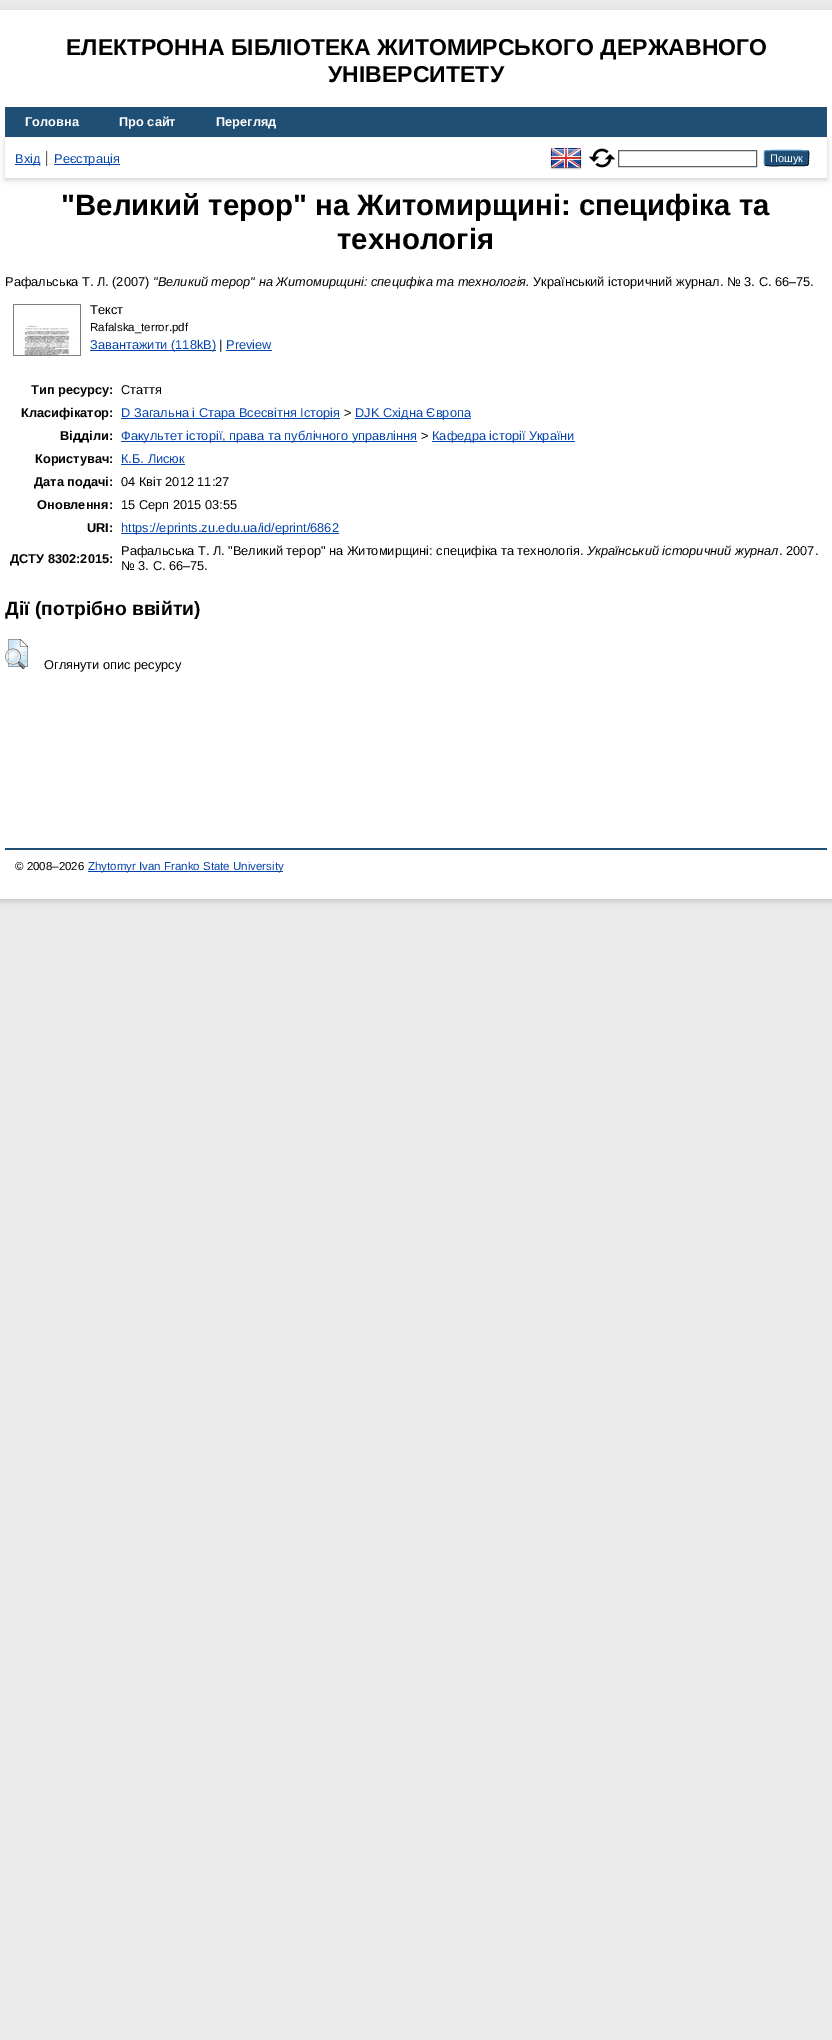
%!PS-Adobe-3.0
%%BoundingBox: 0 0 832 2040
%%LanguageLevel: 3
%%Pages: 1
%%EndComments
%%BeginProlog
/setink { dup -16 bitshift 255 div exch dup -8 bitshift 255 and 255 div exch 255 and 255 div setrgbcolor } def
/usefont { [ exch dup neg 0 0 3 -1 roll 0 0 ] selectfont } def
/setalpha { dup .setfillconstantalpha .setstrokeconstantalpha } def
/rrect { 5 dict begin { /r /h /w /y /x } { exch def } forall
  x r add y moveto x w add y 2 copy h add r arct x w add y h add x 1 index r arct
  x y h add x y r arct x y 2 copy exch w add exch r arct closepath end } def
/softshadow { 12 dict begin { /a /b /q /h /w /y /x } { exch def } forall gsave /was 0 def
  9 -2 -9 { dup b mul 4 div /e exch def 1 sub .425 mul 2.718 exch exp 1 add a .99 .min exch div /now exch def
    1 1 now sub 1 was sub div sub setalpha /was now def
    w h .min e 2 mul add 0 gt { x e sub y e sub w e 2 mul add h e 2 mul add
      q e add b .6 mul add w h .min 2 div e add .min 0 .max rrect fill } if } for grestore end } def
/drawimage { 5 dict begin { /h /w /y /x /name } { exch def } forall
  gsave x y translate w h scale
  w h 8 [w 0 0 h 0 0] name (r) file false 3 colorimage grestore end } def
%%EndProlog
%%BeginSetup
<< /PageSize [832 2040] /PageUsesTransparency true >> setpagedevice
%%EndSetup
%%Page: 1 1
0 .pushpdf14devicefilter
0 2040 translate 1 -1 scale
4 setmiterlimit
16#EAEAEA setink
0 0 832 2040 rectfill
16#646464 setink
0 12 832 889 0 3 0.3 softshadow
16#FFFFFF setink
0 10 832 889 rectfill
/LiberationSans-Bold 23.05 usefont
16#000000 setink
66 55 moveto (ЕЛЕКТРОННА БІБЛІОТЕКА ЖИТОМИРСЬКОГО ДЕРЖАВНОГО) show
328 82 moveto (УНІВЕРСИТЕТУ) show
16#204F76 setink
5 107 822 30 rectfill
/LiberationSans-Bold 12.8 usefont
16#FFFFFF setink
[
    [(Головна) 25 126]
    [(Про сайт) 119 126]
    [(Перегляд) 216 126]
] { aload pop moveto show } forall
16#646464 setink
5 140 822 40 0 3 0.3 softshadow
[
    [5 138 822 40 16#FFFFFF]
    [46 151 1 15 16#606060]
    [15 164 25 1 16#0645AD]
] { aload pop setink rectfill } forall
/LiberationSans-Regular 12.8 usefont
15 163 moveto (Вхід) show
16#E8E8E8 setink
47 151 1 15 rectfill
16#0645AD setink
54 164 66 1 rectfill
54 163 moveto (Реєстрація) show
(img1.raw) 550 148 32 22 drawimage
(img2.raw) 588 148 28 20 drawimage
16#606060 setink
618.5 150.5 138 16 rectstroke
16#1F4F76 setink
764 150 45 16 3 rrect fill
16#5B97C7 setink
765 151 moveto 766.5 150 806.5 150 808 151 curveto stroke
16#0D2131 setink
808 151 moveto 809.5 153 808.5 156 808.5 158 curveto 808.5 166.5 809 165.5 799.5 165.5 curveto 786.5 165.5 lineto 783.5 165.5 767 166.5 765 165 curveto stroke
16#5287B3 setink
765 165 moveto 764 163.5 764.5 159.5 764.5 158 curveto 764.5 156.5 764 152.5 765 151 curveto stroke
/LiberationSans-Regular 11 usefont
16#FFFFFF setink
770 162 moveto (Пошук) show
/LiberationSans-Bold 29.4 usefont
16#000000 setink
61 215 moveto ("Великий терор" на Житомирщині: специфіка та) show
337 249 moveto (технологія) show
/LiberationSans-Regular 12.8 usefont
5 286 moveto (Рафальська Т. Л. \(2007\)) show
/LiberationSans-Italic 12.8 usefont
153 286 moveto ("Великий терор" на Житомирщині: специфіка та технологія.) show
/LiberationSans-Regular 12.8 usefont
533 286 moveto (Український історичний журнал. № 3. С. 66–75.) show
(img3.raw) 13 304 68 52 drawimage
90 314 moveto (Текст) show
/LiberationSans-Regular 11.5 usefont
90 331 moveto (Rafalska_terror.pdf) show
16#0645AD setink
90 350 126 1 rectfill
/LiberationSans-Regular 12.8 usefont
90 349 moveto (Завантажити \(118kB\)) show
16#000000 setink
219 349 moveto (|) show
16#0645AD setink
226 349 moveto (Preview) show
226 350 46 1 rectfill
/LiberationSans-Bold 12.8 usefont
16#000000 setink
31 394 moveto (Тип ресурсу:) show
/LiberationSans-Regular 12.8 usefont
121 394 moveto (Стаття) show
/LiberationSans-Bold 12.8 usefont
21 417 moveto (Класифікатор:) show
16#0645AD setink
121 418 219 1 rectfill
/LiberationSans-Regular 12.8 usefont
121 417 moveto (D Загальна і Стара Всесвітня Історія) show
16#000000 setink
344 417 moveto (>) show
16#0645AD setink
355 418 116 1 rectfill
355 417 moveto (DJK Східна Європа) show
/LiberationSans-Bold 12.8 usefont
16#000000 setink
60 440 moveto (Відділи:) show
16#0645AD setink
121 441 296 1 rectfill
/LiberationSans-Regular 12.8 usefont
121 440 moveto (Факультет історії, права та публічного управління) show
16#000000 setink
421 440 moveto (>) show
16#0645AD setink
432 441 143 1 rectfill
432 440 moveto (Кафедра історії України) show
/LiberationSans-Bold 12.8 usefont
16#000000 setink
35 463 moveto (Користувач:) show
/LiberationSans-Regular 12.8 usefont
16#0645AD setink
121 463 moveto (К.Б. Лисюк) show
121 464 64 1 rectfill
/LiberationSans-Bold 12.8 usefont
16#000000 setink
34 486 moveto (Дата подачі:) show
/LiberationSans-Regular 12.8 usefont
121 486 moveto (04 Квіт 2012 11:27) show
/LiberationSans-Bold 12.8 usefont
37 509 moveto (Оновлення:) show
/LiberationSans-Regular 12.8 usefont
121 509 moveto (15 Серп 2015 03:55) show
/LiberationSans-Bold 12.8 usefont
87 532 moveto (URI:) show
16#0645AD setink
121 533 218 1 rectfill
/LiberationSans-Regular 12.8 usefont
121 532 moveto (https://eprints.zu.edu.ua/id/eprint/6862) show
/LiberationSans-Bold 12.8 usefont
16#000000 setink
10 563 moveto (ДСТУ 8302:2015:) show
/LiberationSans-Regular 12.8 usefont
121 555 moveto (Рафальська Т. Л. "Великий терор" на Житомирщині: специфіка та технологія.) show
/LiberationSans-Italic 12.8 usefont
587 555 moveto (Український історичний журнал) show
/LiberationSans-Regular 12.8 usefont
779 555 moveto (. 2007.) show
121 570 moveto (№ 3. С. 66–75.) show
/LiberationSans-Bold 19.25 usefont
5 615 moveto (Дії \(потрібно ввійти\)) show
(img4.raw) 5 639 23 30 drawimage
/LiberationSans-Regular 12.8 usefont
44 669 moveto (Оглянути опис ресурсу) show
16#204F76 setink
5 848 822 2 rectfill
/LiberationSans-Regular 11.5 usefont
16#000000 setink
15 870 moveto (© 2008–2026) show
16#0645AD setink
88 871 195 1 rectfill
88 870 moveto (Zhytomyr Ivan Franko State University) show
.poppdf14devicefilter showpage
%%EOF
